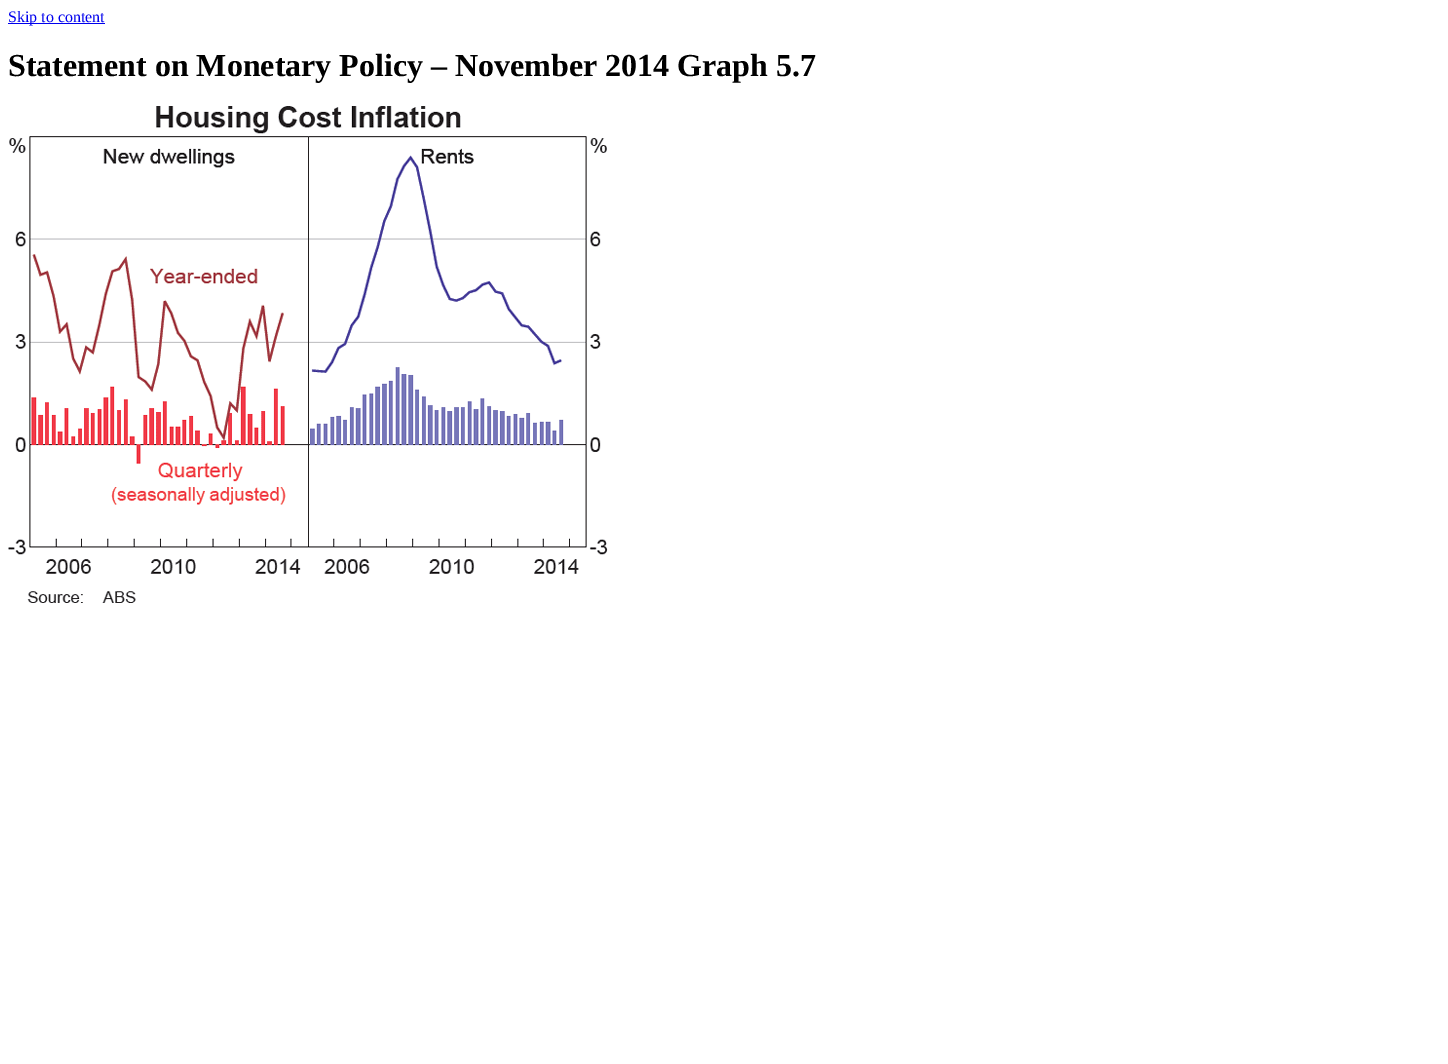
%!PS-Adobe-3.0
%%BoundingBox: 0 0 1448 1064
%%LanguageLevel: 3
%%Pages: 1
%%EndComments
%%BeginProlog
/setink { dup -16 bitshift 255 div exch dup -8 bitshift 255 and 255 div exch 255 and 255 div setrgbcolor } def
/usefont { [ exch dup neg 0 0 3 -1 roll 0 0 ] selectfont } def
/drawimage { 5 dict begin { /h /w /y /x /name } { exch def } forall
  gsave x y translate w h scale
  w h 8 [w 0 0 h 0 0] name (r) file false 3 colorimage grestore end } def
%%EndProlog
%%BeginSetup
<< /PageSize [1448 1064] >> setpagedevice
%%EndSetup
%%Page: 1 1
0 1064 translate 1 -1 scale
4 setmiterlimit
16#FFFFFF setink
0 0 1448 1064 rectfill
16#0000EE setink
8 23 97 1 rectfill
/LiberationSerif-Regular 16 usefont
8 22 moveto (Skip to content) show
/LiberationSerif-Bold 32 usefont
16#000000 setink
8 76 moveto (Statement on Monetary Policy – November 2014 Graph 5.7) show
(img1.raw) 8 106 600 497 drawimage
showpage
%%EOF
